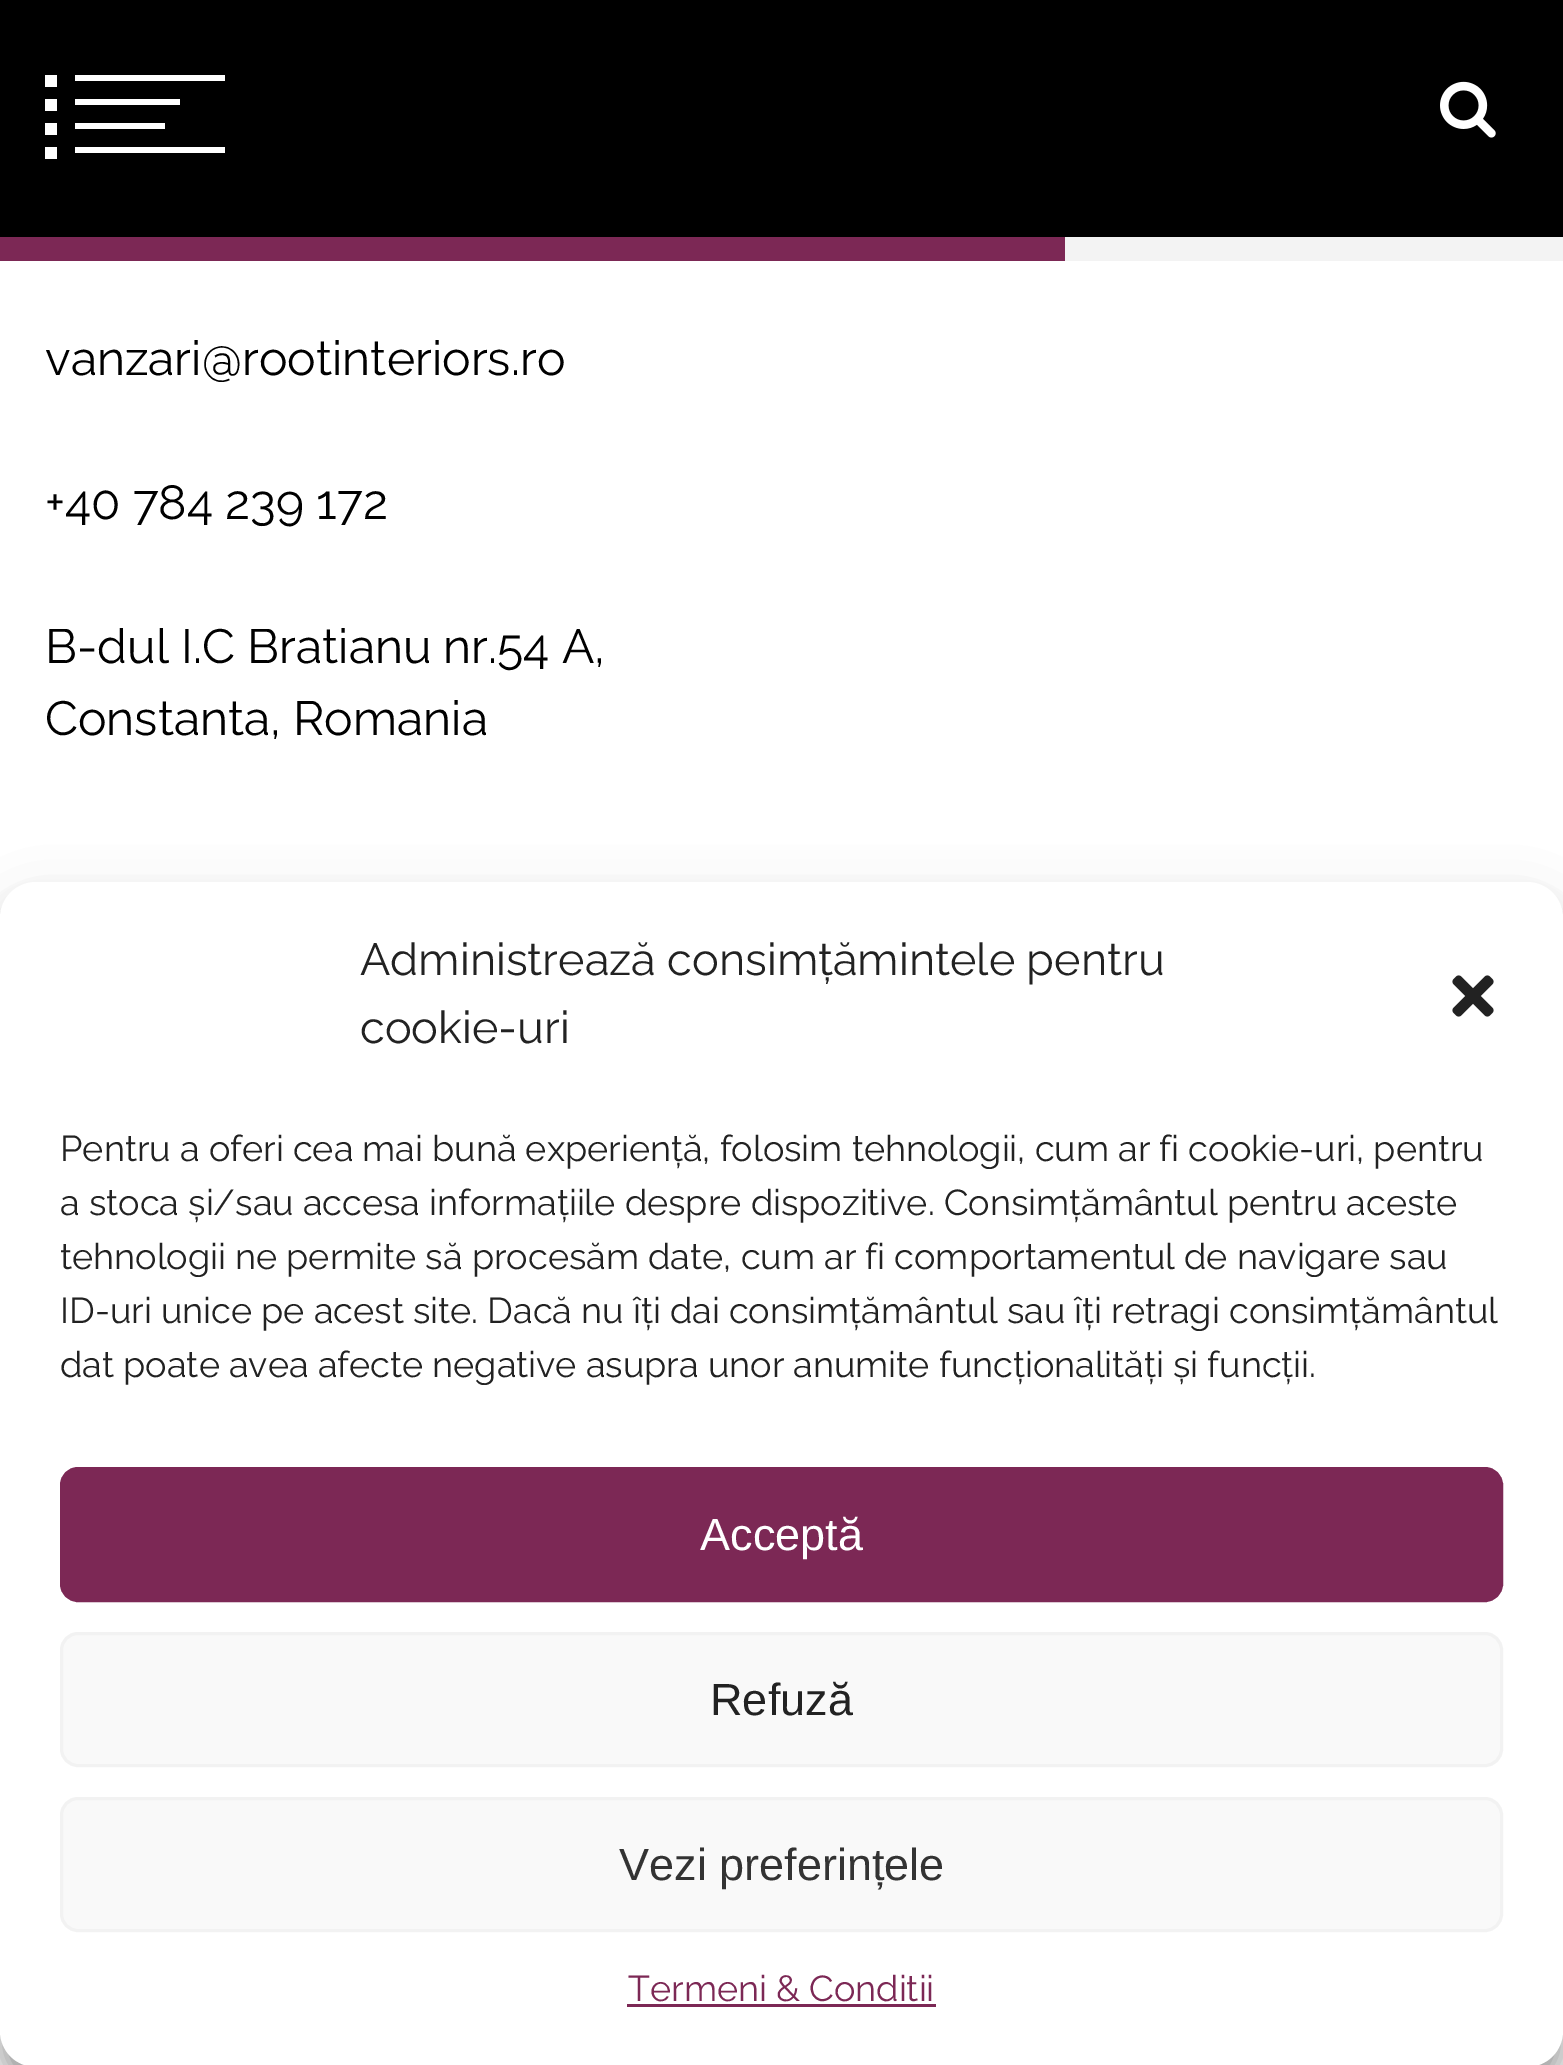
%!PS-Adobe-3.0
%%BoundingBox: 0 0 1563 2065
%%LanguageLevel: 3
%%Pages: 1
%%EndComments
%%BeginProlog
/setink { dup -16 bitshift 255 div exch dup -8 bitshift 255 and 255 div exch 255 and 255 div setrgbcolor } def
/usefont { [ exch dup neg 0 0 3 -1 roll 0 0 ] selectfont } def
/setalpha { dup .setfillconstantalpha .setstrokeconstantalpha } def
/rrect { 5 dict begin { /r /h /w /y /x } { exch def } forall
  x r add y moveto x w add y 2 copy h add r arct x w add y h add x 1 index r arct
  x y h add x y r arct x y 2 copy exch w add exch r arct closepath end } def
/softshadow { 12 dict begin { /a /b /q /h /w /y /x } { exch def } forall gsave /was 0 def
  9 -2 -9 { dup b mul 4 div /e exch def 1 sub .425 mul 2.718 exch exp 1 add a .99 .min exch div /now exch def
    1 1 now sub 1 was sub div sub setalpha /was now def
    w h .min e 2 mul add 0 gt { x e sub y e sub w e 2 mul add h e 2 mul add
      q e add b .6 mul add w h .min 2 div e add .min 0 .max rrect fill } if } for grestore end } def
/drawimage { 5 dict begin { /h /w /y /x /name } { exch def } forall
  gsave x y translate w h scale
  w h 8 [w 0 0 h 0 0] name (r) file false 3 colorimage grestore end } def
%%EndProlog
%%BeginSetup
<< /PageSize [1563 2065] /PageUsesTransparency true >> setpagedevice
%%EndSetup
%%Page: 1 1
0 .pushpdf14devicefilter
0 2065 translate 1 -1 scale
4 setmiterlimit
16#FFFFFF setink
0 0 1563 2065 rectfill
[
    [0 0 1563 237 16#000000]
    [45 75 12 12 16#FFFFFF]
    [75 75 150 6 16#FFFFFF]
    [45 99 12 12 16#FFFFFF]
    [75 99 105 6 16#FFFFFF]
    [45 123 12 12 16#FFFFFF]
    [75 123 90 6 16#FFFFFF]
    [45 147 12 12 16#FFFFFF]
    [75 147 150 6 16#FFFFFF]
] { aload pop setink rectfill } forall
(img1.raw) 1440 81 56 57 drawimage
16#7C2855 setink
0 237 1065 24 rectfill
16#F3F3F3 setink
1065 237 498 24 rectfill
/Raleway-Regular 48 usefont
16#000000 setink
[
    [(vanzari@rootinteriors.ro) 45 375]
    [(+40 784 239 172) 45 519]
    [(B-dul I.C Bratianu nr.54 A,) 45 663]
    [(Constanta, Romania) 45 735]
] { aload pop moveto show } forall
0 900 1563 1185 36 9 0.23 softshadow
0 912 1563 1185 36 30 0.19 softshadow
16#FFFFFF setink
0 882 1563 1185 36 rrect fill
/Raleway-Regular 45 usefont
16#222222 setink
360 975 moveto (Administrează consimțămintele pentru) show
360 1043 moveto (cookie-uri) show
(img2.raw) 1452 975 42 42 drawimage
/Raleway-Regular 36 usefont
[
    [(Pentru a oferi cea mai bună experiență, folosim tehnologii, cum ar fi cookie-uri, pentru) 60 1161]
    [(a stoca și/sau accesa informațiile despre dispozitive. Consimțământul pentru aceste) 60 1215]
    [(tehnologii ne permite să procesăm date, cum ar fi comportamentul de navigare sau) 60 1269]
    [(ID-uri unice pe acest site. Dacă nu îți dai consimțământul sau îți retragi consimțământul) 60 1323]
    [(dat poate avea afecte negative asupra unor anumite funcționalități și funcții.) 60 1377]
] { aload pop moveto show } forall
16#7C2855 setink
61.5 1468.5 1440 132 16.5 rrect gsave fill grestore
3 setlinewidth
stroke
/LiberationSans-Regular 45 usefont
16#FFFFFF setink
700 1550 moveto (Acceptă) show
16#F9F9F9 setink
61.5 1633.5 1440 132 16.5 rrect gsave fill grestore
16#F2F2F2 setink
stroke
16#222222 setink
710 1715 moveto (Refuză) show
16#F9F9F9 setink
61.5 1798.5 1440 132 16.5 rrect gsave fill grestore
16#F2F2F2 setink
stroke
16#333333 setink
619 1880 moveto (Vezi preferințele) show
/Raleway-Regular 36 usefont
16#7C2855 setink
628 2001 moveto (Termeni & Conditii) show
627 2004 309 3 rectfill
.poppdf14devicefilter showpage
%%EOF
